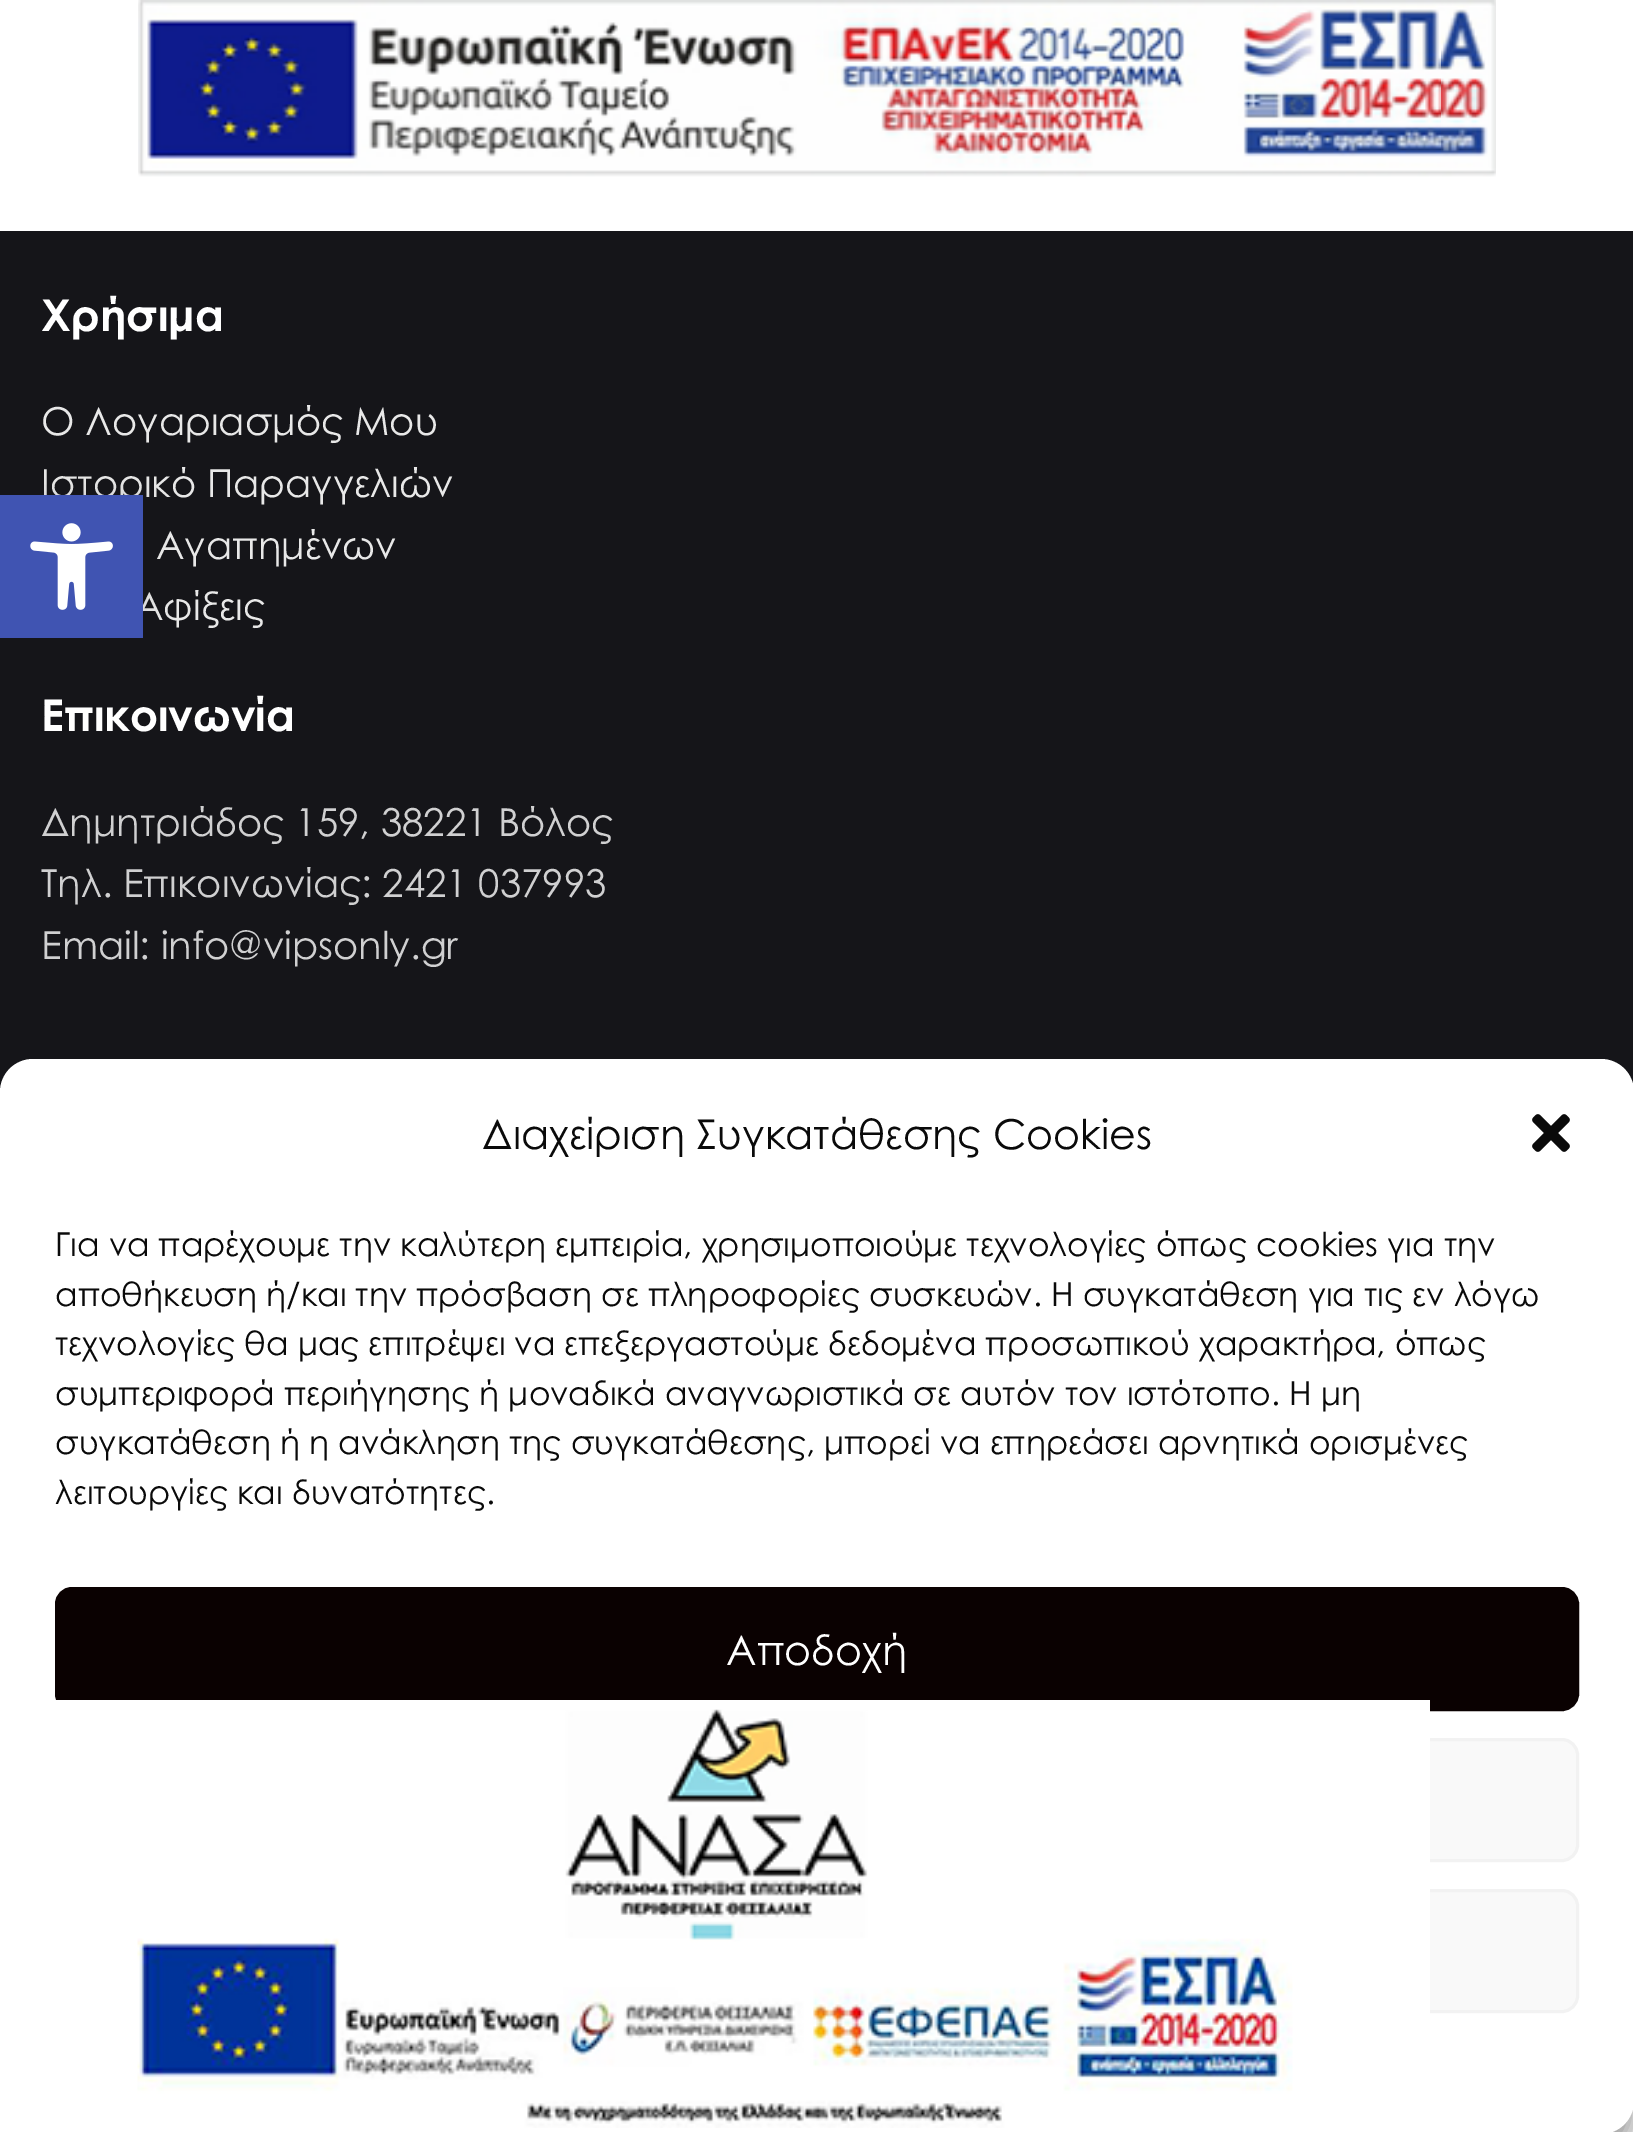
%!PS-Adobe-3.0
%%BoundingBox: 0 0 1633 2132
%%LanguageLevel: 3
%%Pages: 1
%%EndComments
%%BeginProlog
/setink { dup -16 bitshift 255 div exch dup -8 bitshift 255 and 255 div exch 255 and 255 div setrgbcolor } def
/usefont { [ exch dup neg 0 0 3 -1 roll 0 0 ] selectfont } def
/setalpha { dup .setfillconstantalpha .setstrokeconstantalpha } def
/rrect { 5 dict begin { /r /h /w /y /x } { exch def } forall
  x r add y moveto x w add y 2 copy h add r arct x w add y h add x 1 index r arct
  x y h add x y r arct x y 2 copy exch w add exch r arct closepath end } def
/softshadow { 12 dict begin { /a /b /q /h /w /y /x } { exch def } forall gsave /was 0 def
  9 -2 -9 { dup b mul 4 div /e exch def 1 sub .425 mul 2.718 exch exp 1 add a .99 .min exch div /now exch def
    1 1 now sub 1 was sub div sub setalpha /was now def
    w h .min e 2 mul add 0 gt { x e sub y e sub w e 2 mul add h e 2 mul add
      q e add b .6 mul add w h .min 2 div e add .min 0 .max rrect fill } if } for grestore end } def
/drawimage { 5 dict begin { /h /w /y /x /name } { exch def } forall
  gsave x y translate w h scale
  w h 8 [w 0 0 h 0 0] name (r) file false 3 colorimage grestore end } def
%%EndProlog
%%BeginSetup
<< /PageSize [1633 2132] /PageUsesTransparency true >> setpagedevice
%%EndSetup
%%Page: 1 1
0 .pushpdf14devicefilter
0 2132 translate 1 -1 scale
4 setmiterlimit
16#FFFFFF setink
0 0 1633 2132 rectfill
(img1.raw) 138 0 1358 177 drawimage
16#151519 setink
0 231 1633 861 rectfill
/CenturyGothic-Bold 44 usefont
16#FFFFFF setink
41 331 moveto (Χρήσιμα) show
/CenturyGothic-Regular 38.5 usefont
16#E8E8E8 setink
[
    [(Ο Λογαριασμός Μου) 41 435]
    [(Ιστορικό Παραγγελιών) 41 497]
    [(Αγαπημένων) 156 559]
    [(Αφίξεις) 135 620]
] { aload pop moveto show } forall
/CenturyGothic-Bold 44 usefont
16#FFFFFF setink
41 731 moveto (Επικοινωνία) show
/CenturyGothic-Regular 38.5 usefont
16#D0D0D1 setink
[
    [(Δημητριάδος 159, 38221 Βόλος) 41 836]
    [(Τηλ. Επικοινωνίας: 2421 037993) 41 897]
    [(Email: info@vipsonly.gr) 41 959]
] { aload pop moveto show } forall
16#000000 setink
0 495 143 143 0 14 0.1 softshadow
16#4054B2 setink
0 495 143 143 rectfill
(img2.raw) 30 523 83 87 drawimage
16#000000 setink
0 1075 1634 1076 33 8 0.23 softshadow
0 1086 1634 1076 33 27.5 0.19 softshadow
16#FFFFFF setink
0 1059 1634 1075 33 rrect fill
/CenturyGothic-Regular 41.25 usefont
16#0A0A0A setink
482 1149 moveto (Διαχείριση Συγκατάθεσης Cookies) show
(img3.raw) 1532 1114 38 38 drawimage
/CenturyGothic-Regular 33 usefont
[
    [(Για να παρέχουμε την καλύτερη εμπειρία, χρησιμοποιούμε τεχνολογίες όπως cookies για την) 55 1256]
    [(αποθήκευση ή/και την πρόσβαση σε πληροφορίες συσκευών. Η συγκατάθεση για τις εν λόγω) 55 1306]
    [(τεχνολογίες θα μας επιτρέψει να επεξεργαστούμε δεδομένα προσωπικού χαρακτήρα, όπως) 55 1355]
    [(συμπεριφορά περιήγησης ή μοναδικά αναγνωριστικά σε αυτόν τον ιστότοπο. Η μη) 55 1405]
    [(συγκατάθεση ή η ανάκληση της συγκατάθεσης, μπορεί να επηρεάσει αρνητικά ορισμένες) 55 1454]
    [(λειτουργίες και δυνατότητες.) 55 1504]
] { aload pop moveto show } forall
16#0A0101 setink
56.5 1588.5 1521 121 15.5 rrect gsave fill grestore
3 setlinewidth
stroke
/CenturyGothic-Regular 41.25 usefont
16#FFFFFF setink
726 1665 moveto (Αποδοχή) show
16#F9F9F9 setink
56.5 1739.5 1521 121 15.5 rrect gsave fill grestore
16#F2F2F2 setink
stroke
16#F9F9F9 setink
56.5 1890.5 1521 121 15.5 rrect gsave fill grestore
16#F2F2F2 setink
stroke
16#FFFFFF setink
0 1700 1430 432 rectfill
(img4.raw) 137 1709 1156 419 drawimage
.poppdf14devicefilter showpage
%%EOF
